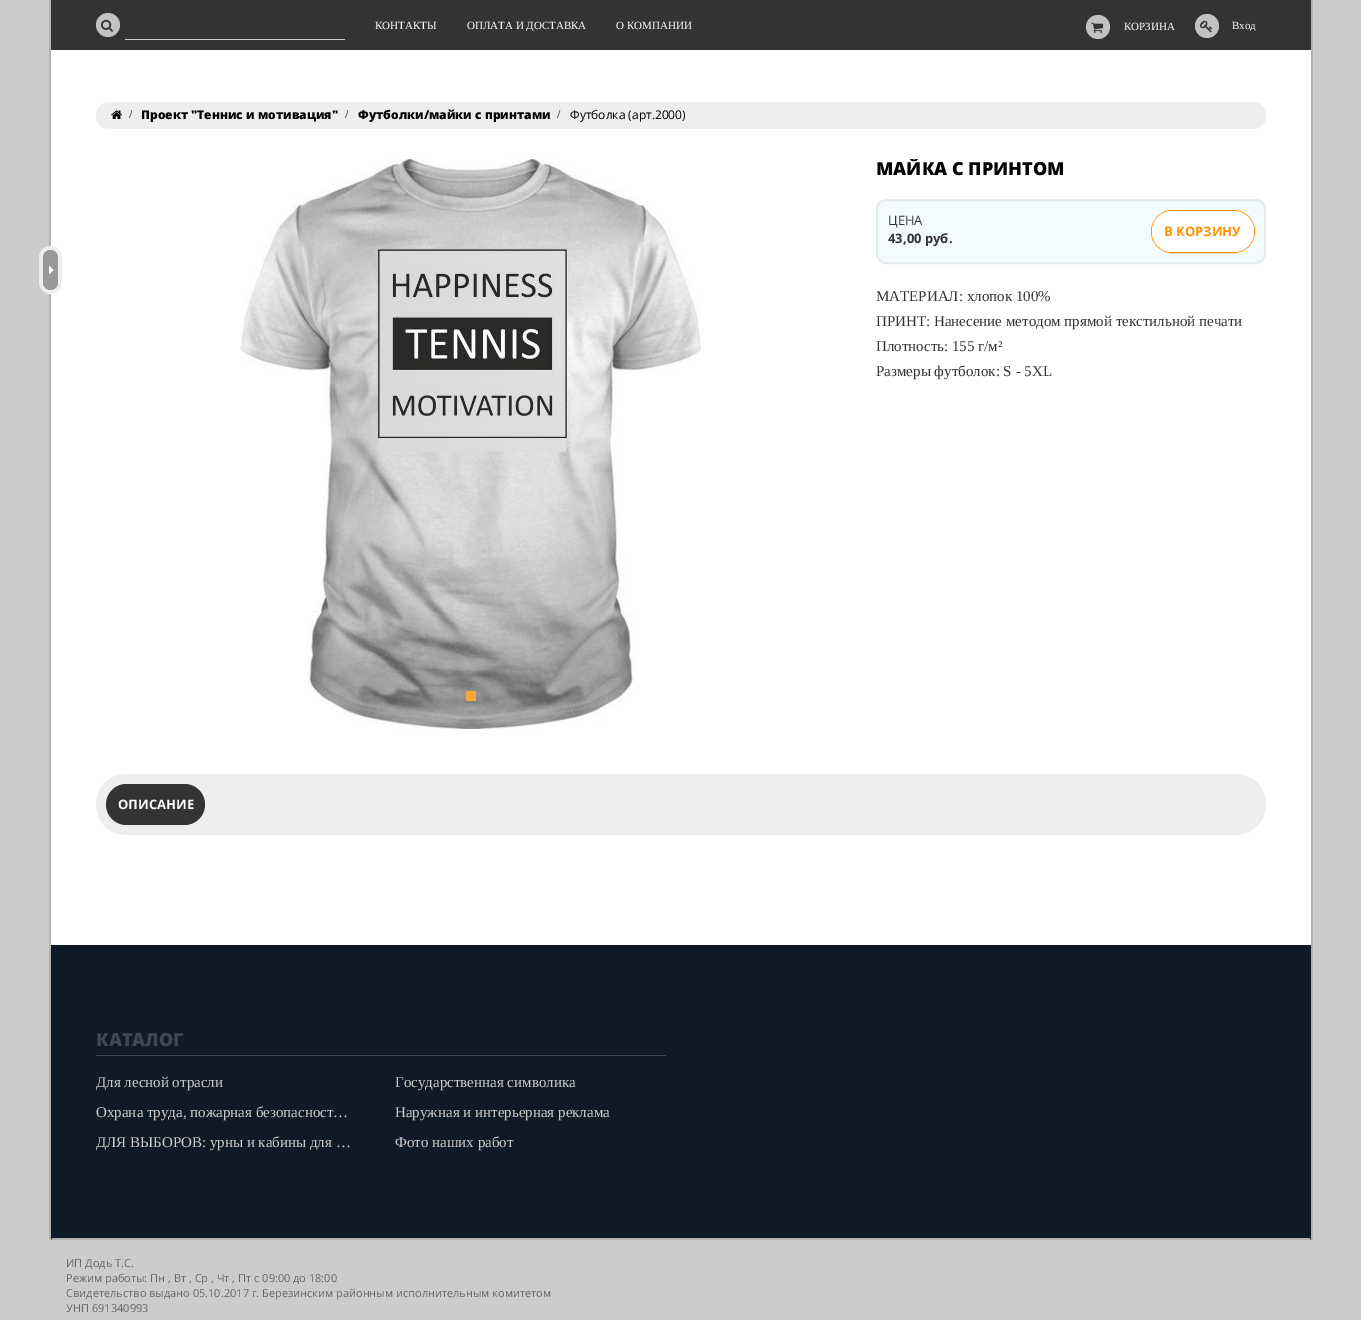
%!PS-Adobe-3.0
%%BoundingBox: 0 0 1361 1320
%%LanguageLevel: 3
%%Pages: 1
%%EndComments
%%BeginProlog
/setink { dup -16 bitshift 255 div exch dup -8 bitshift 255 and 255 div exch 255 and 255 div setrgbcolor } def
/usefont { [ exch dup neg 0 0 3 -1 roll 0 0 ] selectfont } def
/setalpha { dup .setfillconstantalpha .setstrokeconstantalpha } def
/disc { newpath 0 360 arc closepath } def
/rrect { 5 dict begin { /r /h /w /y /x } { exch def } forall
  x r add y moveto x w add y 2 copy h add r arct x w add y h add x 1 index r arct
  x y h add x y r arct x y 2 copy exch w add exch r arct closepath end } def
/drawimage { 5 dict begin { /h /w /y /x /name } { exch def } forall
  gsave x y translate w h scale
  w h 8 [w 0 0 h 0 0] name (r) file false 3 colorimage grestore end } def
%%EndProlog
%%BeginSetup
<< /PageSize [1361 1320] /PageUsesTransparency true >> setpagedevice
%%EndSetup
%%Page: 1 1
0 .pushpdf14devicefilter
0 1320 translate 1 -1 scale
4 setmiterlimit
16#CCCCCC setink
0 0 1361 1320 rectfill
16#333333 setink
51 0 1260 50 rectfill
16#C2C2C2 setink
108 25 12 disc fill
(img1.raw) 101 19 12 13 drawimage
16#CCCCCC setink
125 39 220 1 rectfill
/LiberationSerif-Regular 11 usefont
16#FFFFFF setink
[
    [(КОНТАКТЫ) 375 29]
    [(ОПЛАТА И ДОСТАВКА) 467 29]
    [(О КОМПАНИИ) 616 29]
] { aload pop moveto show } forall
16#C2C2C2 setink
1098 27 12 disc fill
(img2.raw) 1091 22 13 11 drawimage
16#FFFFFF setink
1124 30 moveto (КОРЗИНА) show
16#C2C2C2 setink
1207 26 12 disc fill
(img3.raw) 1200 20 13 13 drawimage
16#FFFFFF setink
1232 29 moveto (Вход) show
[
    [1311 0 2 945 16#B2B2B2]
    [49 0 2 945 16#B2B2B2]
    [51 50 1260 895 16#FFFFFF]
] { aload pop setink rectfill } forall
16#EEEEEE setink
4 setlinewidth
41 248 19 44 9.5 rrect stroke
16#999999 setink
43 250 15 40 7.5 rrect fill
(img4.raw) 49 266 5 8 drawimage
16#EEEEEE setink
96 102 1170 27 13 rrect fill
(img5.raw) 111 110 11 9 drawimage
/LiberationSerif-Regular 12 usefont
16#000000 setink
129 118 moveto (/) show
/OpenSans-ExtraBold 12 usefont
141 119 moveto (Проект "Теннис и мотивация") show
/LiberationSerif-Regular 12 usefont
345 118 moveto (/) show
/OpenSans-ExtraBold 12 usefont
358 119 moveto (Футболки/майки с принтами) show
/LiberationSerif-Regular 12 usefont
557 118 moveto (/) show
/OpenSans-Regular 12 usefont
570 119 moveto (Футболка \(арт.2000\)) show
(img6.raw) 240 159 462 570 drawimage
0.75 setalpha
16#FFFFFF setink
466 691 10 10 rectfill
16#FF9100 setink
466 691 10 10 rectfill
gsave
876 159 188 18 rectclip
/OpenSans-ExtraBold 18 usefont
1 setalpha
16#000000 setink
876 175 moveto (МАЙКА С ПРИНТОМ) show
grestore
1 setalpha
16#F2FBFE setink
877 200 388 63 9 rrect gsave fill grestore
16#E4ECEF setink
2 setlinewidth
stroke
/OpenSans-Regular 13 usefont
16#333333 setink
888 225 moveto (ЦЕНА) show
/OpenSans-Bold 13 usefont
888 243 moveto (43,00 руб.) show
16#FF9100 setink
1 setlinewidth
1151.5 210.5 103 42 20.5 rrect stroke
16#FFFFFF setink
1152 211 102 41 20 rrect fill
16#FF9100 setink
1164 236 moveto (В КОРЗИНУ) show
/LiberationSerif-Regular 15 usefont
16#333333 setink
[
    [(МАТЕРИАЛ: хлопок 100%) 876 301]
    [(ПРИНТ: Нанесение методом прямой текстильной печати) 876 326]
    [(Плотность: 155 г/м²) 876 351]
    [(Размеры футболок: S - 5XL) 876 376]
] { aload pop moveto show } forall
16#EEEEEE setink
96 774 1170 61 30 rrect fill
16#333333 setink
106 784 99 41 20.5 rrect fill
/OpenSans-Bold 13 usefont
16#FFFFFF setink
118 809 moveto (ОПИСАНИЕ) show
16#B2B2B2 setink
1309 1240 moveto 1310 1240 1312 1240 1313 1239 curveto 1313 945 lineto 1311 945 lineto 1311 1238 lineto 1311 1239 1310 1240 1309 1240 curveto closepath fill
49 945 moveto 49 1239 lineto 50 1240 52 1240 53 1240 curveto 52 1240 51 1239 51 1238 curveto 51 945 lineto closepath fill
16#0E1A27 setink
51 945 moveto 1311 945 lineto 1311 1238 lineto 1311 1239 1310 1240 1309 1240 curveto 53 1240 lineto 52 1240 51 1239 51 1238 curveto closepath fill
16#B2B2B2 setink
52 1238 1258 2 rectfill
16#3E4852 setink
96 1055 570 1 rectfill
/OpenSans-ExtraBold 18 usefont
96 1046 moveto (КАТАЛОГ) show
/LiberationSerif-Regular 15 usefont
16#CCCCCC setink
[
    [(Для лесной отрасли) 96 1087]
    [(Государственная символика) 395 1087]
    [(Охрана труда, пожарная безопасност…) 96 1117]
    [(Наружная и интерьерная реклама) 395 1117]
    [(ДЛЯ ВЫБОРОВ: урны и кабины для …) 96 1147]
    [(Фото наших работ) 395 1147]
] { aload pop moveto show } forall
/OpenSans-Regular 11 usefont
16#666666 setink
[
    [(ИП Додь Т.С.) 66 1267]
    [(Режим работы: Пн , Вт , Ср , Чт , Пт c 09:00 до 18:00) 66 1282]
    [(Свидетельство выдано 05.10.2017 г. Березинским районным исполнительным комитетом) 66 1297]
    [(УНП 691340993) 66 1312]
] { aload pop moveto show } forall
.poppdf14devicefilter showpage
%%EOF
